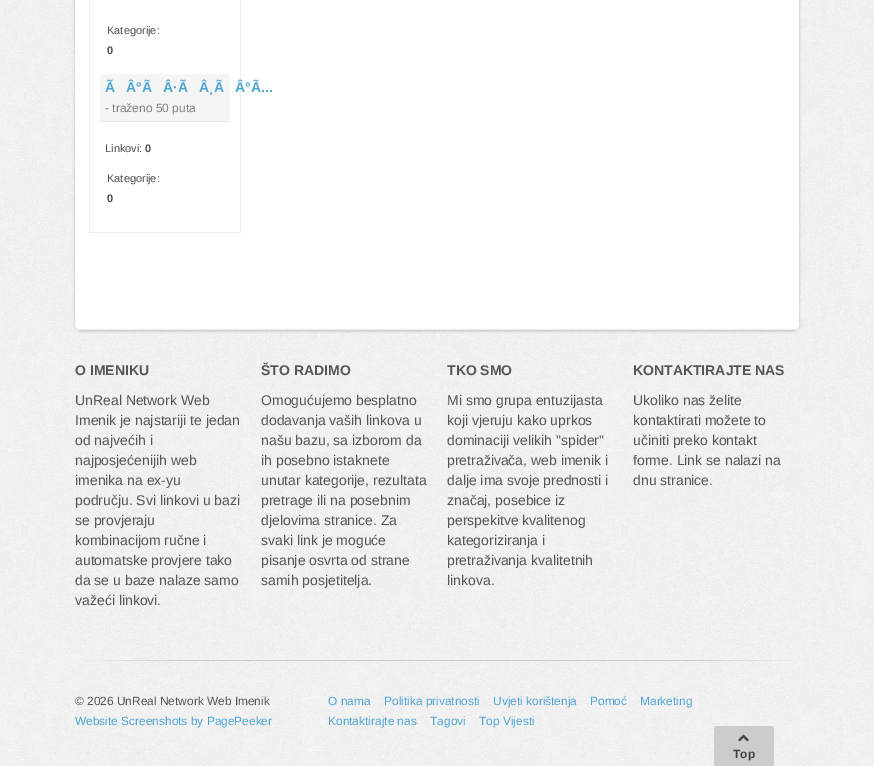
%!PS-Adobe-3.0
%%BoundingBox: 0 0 874 766
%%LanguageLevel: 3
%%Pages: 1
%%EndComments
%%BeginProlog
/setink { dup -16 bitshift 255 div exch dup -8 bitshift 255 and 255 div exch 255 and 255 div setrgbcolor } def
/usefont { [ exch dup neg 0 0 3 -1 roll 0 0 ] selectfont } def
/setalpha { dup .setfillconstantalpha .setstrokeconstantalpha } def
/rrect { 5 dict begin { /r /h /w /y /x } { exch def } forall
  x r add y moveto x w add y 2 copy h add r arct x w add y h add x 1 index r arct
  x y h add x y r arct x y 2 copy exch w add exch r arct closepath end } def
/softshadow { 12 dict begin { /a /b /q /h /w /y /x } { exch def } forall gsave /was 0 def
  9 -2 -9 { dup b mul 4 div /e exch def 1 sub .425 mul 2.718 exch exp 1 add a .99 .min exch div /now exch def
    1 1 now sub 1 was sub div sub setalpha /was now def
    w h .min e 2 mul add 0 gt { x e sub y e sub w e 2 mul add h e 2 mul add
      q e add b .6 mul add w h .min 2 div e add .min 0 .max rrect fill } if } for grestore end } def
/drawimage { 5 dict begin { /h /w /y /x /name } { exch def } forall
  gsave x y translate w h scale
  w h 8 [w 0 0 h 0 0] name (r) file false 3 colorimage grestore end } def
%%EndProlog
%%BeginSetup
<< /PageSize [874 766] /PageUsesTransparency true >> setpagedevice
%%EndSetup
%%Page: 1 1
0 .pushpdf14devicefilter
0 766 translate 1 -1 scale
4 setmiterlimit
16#FFFFFF setink
0 0 874 766 rectfill
(img1.raw) 0 0 874 766 drawimage
16#000000 setink
75 -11 724 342 6 1.5 0.2 softshadow
16#FFFFFF setink
75 -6 724 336 6 rrect fill
[
    [240 0 1 233 16#EEEEEE]
    [89 232 152 1 16#EEEEEE]
    [89 0 1 233 16#EEEEEE]
] { aload pop setink rectfill } forall
/LiberationSans-Regular 11 usefont
16#4D4D4D setink
107 34 moveto (Kategorije:) show
/LiberationSans-Bold 11 usefont
107 54 moveto (0) show
16#F5F5F5 setink
100 74 130 47 rectfill
16#E5E5E5 setink
100 121 130 1 rectfill
/LiberationSans-Bold 14 usefont
16#4DA5D1 setink
[
    [(Ã) 105 92]
    [(Â°Ã) 126 92]
    [(Â·Ã) 163 92]
    [(Â¸Ã) 199 92]
    [(Â°Ã...) 235 92]
] { aload pop moveto show } forall
/LiberationSans-Regular 12 usefont
16#808080 setink
105 112 moveto (- traženo 50 puta) show
/LiberationSans-Regular 11 usefont
16#4D4D4D setink
105 152 moveto (Linkovi:) show
/LiberationSans-Bold 11 usefont
145 152 moveto (0) show
/LiberationSans-Regular 11 usefont
107 182 moveto (Kategorije:) show
/LiberationSans-Bold 11 usefont
107 202 moveto (0) show
16#EEEEEE setink
75 329 724 1 rectfill
/LiberationSans-Bold 14 usefont
16#555555 setink
75 375 moveto (O IMENIKU) show
/LiberationSans-Regular 14 usefont
[
    [(UnReal Network Web) 75 405]
    [(Imenik je najstariji te jedan) 75 425]
    [(od najvećih i) 75 445]
    [(najposjećenijih web) 75 465]
    [(imenika na ex-yu) 75 485]
    [(području. Svi linkovi u bazi) 75 505]
    [(se provjeraju) 75 525]
    [(kombinacijom ručne i) 75 545]
    [(automatske provjere tako) 75 565]
    [(da se u baze nalaze samo) 75 585]
    [(važeći linkovi.) 75 605]
] { aload pop moveto show } forall
/LiberationSans-Bold 14 usefont
261 375 moveto (ŠTO RADIMO) show
/LiberationSans-Regular 14 usefont
[
    [(Omogućujemo besplatno) 261 405]
    [(dodavanja vaših linkova u) 261 425]
    [(našu bazu, sa izborom da) 261 445]
    [(ih posebno istaknete) 261 465]
    [(unutar kategorije, rezultata) 261 485]
    [(pretrage ili na posebnim) 261 505]
    [(djelovima stranice. Za) 261 525]
    [(svaki link je moguće) 261 545]
    [(pisanje osvrta od strane) 261 565]
    [(samih posjetitelja.) 261 585]
] { aload pop moveto show } forall
/LiberationSans-Bold 14 usefont
447 375 moveto (TKO SMO) show
/LiberationSans-Regular 14 usefont
[
    [(Mi smo grupa entuzijasta) 447 405]
    [(koji vjeruju kako uprkos) 447 425]
    [(dominaciji velikih "spider") 447 445]
    [(pretraživača, web imenik i) 447 465]
    [(dalje ima svoje prednosti i) 447 485]
    [(značaj, posebice iz) 447 505]
    [(perspekitve kvalitenog) 447 525]
    [(kategoriziranja i) 447 545]
    [(pretraživanja kvalitetnih) 447 565]
    [(linkova.) 447 585]
] { aload pop moveto show } forall
/LiberationSans-Bold 14 usefont
633 375 moveto (KONTAKTIRAJTE NAS) show
/LiberationSans-Regular 14 usefont
[
    [(Ukoliko nas želite) 633 405]
    [(kontaktirati možete to) 633 425]
    [(učiniti preko kontakt) 633 445]
    [(forme. Link se nalazi na) 633 465]
    [(dnu stranice.) 633 485]
] { aload pop moveto show } forall
/LiberationSans-Regular 11.9 usefont
75 705 moveto (© 2026 UnReal Network Web Imenik) show
16#4DA5D1 setink
[
    [(Website Screenshots by PagePeeker) 75 725]
    [(O nama) 328 705]
    [(Politika privatnosti) 384 705]
    [(Uvjeti korištenja) 493 705]
    [(Pomoć) 590 705]
    [(Marketing) 640 705]
    [(Kontaktirajte nas) 328 725]
    [(Tagovi) 430 725]
    [(Top Vijesti) 479 725]
] { aload pop moveto show } forall
16#CCCCCC setink
717 726 moveto 771 726 lineto 772.5 726 774 727.5 774 729 curveto 774 766 lineto 714 766 lineto 714 729 lineto 714 727.5 715.5 726 717 726 curveto closepath fill
(img2.raw) 738 734 11 8 drawimage
/LiberationSans-Bold 11.9 usefont
16#444444 setink
733 758 moveto (Top) show
.poppdf14devicefilter showpage
%%EOF
